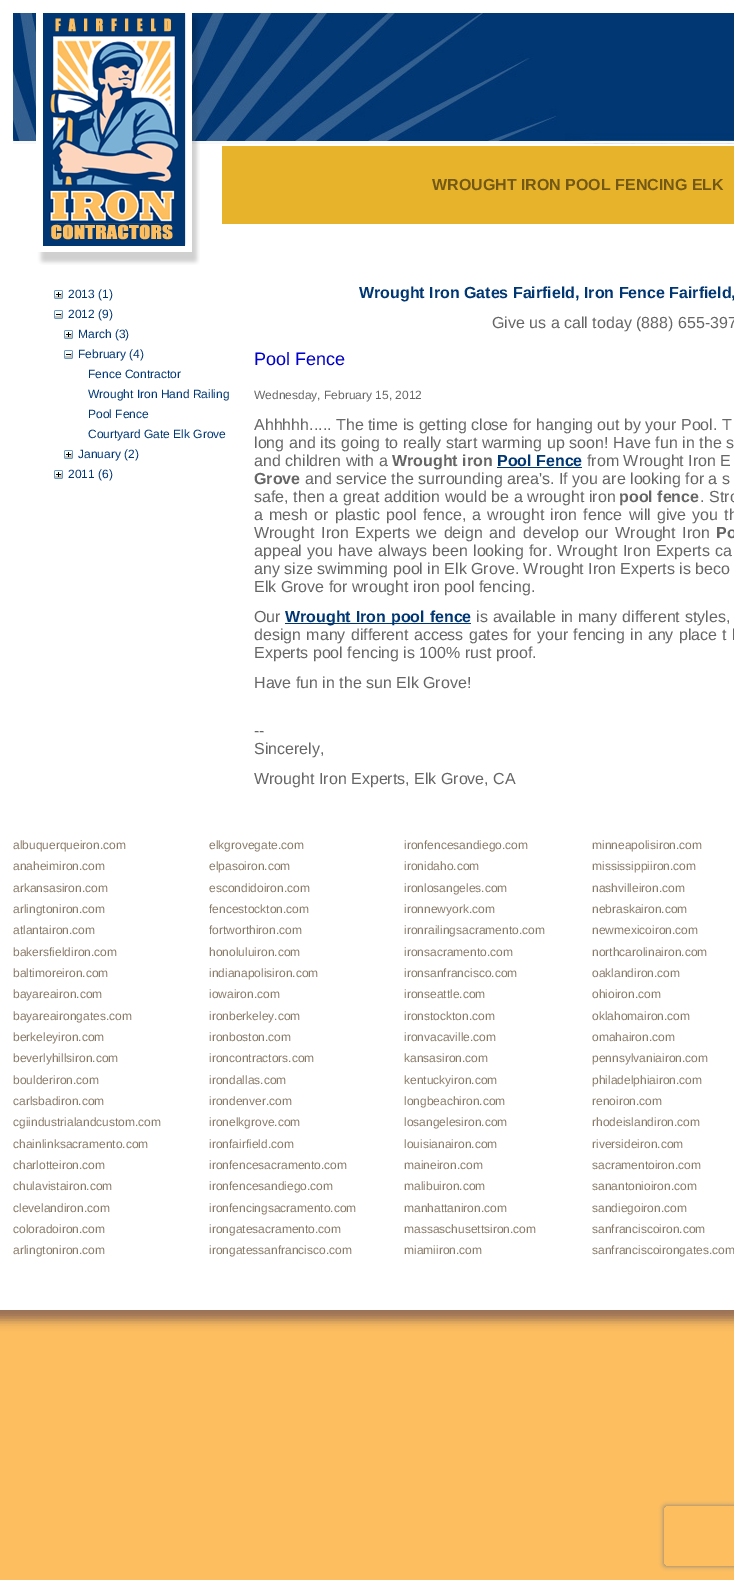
%!PS-Adobe-3.0
%%BoundingBox: 0 0 734 1580
%%LanguageLevel: 3
%%Pages: 1
%%EndComments
%%BeginProlog
/setink { dup -16 bitshift 255 div exch dup -8 bitshift 255 and 255 div exch 255 and 255 div setrgbcolor } def
/usefont { [ exch dup neg 0 0 3 -1 roll 0 0 ] selectfont } def
/setalpha { dup .setfillconstantalpha .setstrokeconstantalpha } def
/rrect { 5 dict begin { /r /h /w /y /x } { exch def } forall
  x r add y moveto x w add y 2 copy h add r arct x w add y h add x 1 index r arct
  x y h add x y r arct x y 2 copy exch w add exch r arct closepath end } def
/softshadow { 12 dict begin { /a /b /q /h /w /y /x } { exch def } forall gsave /was 0 def
  9 -2 -9 { dup b mul 4 div /e exch def 1 sub .425 mul 2.718 exch exp 1 add a .99 .min exch div /now exch def
    1 1 now sub 1 was sub div sub setalpha /was now def
    w h .min e 2 mul add 0 gt { x e sub y e sub w e 2 mul add h e 2 mul add
      q e add b .6 mul add w h .min 2 div e add .min 0 .max rrect fill } if } for grestore end } def
/drawimage { 5 dict begin { /h /w /y /x /name } { exch def } forall
  gsave x y translate w h scale
  w h 8 [w 0 0 h 0 0] name (r) file false 3 colorimage grestore end } def
%%EndProlog
%%BeginSetup
<< /PageSize [734 1580] /PageUsesTransparency true >> setpagedevice
%%EndSetup
%%Page: 1 1
0 .pushpdf14devicefilter
0 1580 translate 1 -1 scale
4 setmiterlimit
16#FDBE5F setink
0 0 734 1580 rectfill
16#966E56 setink
-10 -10 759 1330 0 5 1 softshadow
[
    [13 144 721 1166 16#FFFFFF]
    [13 0 721 13 16#FFFFFF]
    [0 0 13 1310 16#FFFFFF]
] { aload pop setink rectfill } forall
(img1.raw) 13 13 721 131 drawimage
(img2.raw) 36 13 164 252 drawimage
(img3.raw) 54 290 9 9 drawimage
/LiberationSans-Regular 12 usefont
16#003773 setink
68 298 moveto (2013 \(1\)) show
(img4.raw) 54 310 9 9 drawimage
68 318 moveto (2012 \(9\)) show
(img3.raw) 64 330 9 9 drawimage
78 338 moveto (March \(3\)) show
(img4.raw) 64 350 9 9 drawimage
[
    [(February \(4\)) 78 358]
    [(Fence Contractor) 88 378]
    [(Wrought Iron Hand Railing) 88 398]
    [(Pool Fence) 88 418]
    [(Courtyard Gate Elk Grove) 88 438]
] { aload pop moveto show } forall
(img3.raw) 64 450 9 9 drawimage
78 458 moveto (January \(2\)) show
(img3.raw) 54 470 9 9 drawimage
68 478 moveto (2011 \(6\)) show
16#E7B32A setink
222 146 512 78 rectfill
/LiberationSans-Bold 16 usefont
16#735915 setink
432 190 moveto (WROUGHT IRON POOL FENCING ELK) show
16#003773 setink
359 298 moveto (Wrought Iron Gates Fairfield, Iron Fence Fairfield,) show
/LiberationSans-Regular 16 usefont
16#666666 setink
492 328 moveto (Give us a call today \(888\) 655-397) show
/LiberationSans-Regular 18 usefont
16#0000CC setink
254 365 moveto (Pool Fence) show
/LiberationSans-Regular 12 usefont
16#666666 setink
254 399 moveto (Wednesday, February 15, 2012) show
/LiberationSans-Regular 16 usefont
254 430 moveto (Ahhhhh..... The time is getting close for hanging out by your Pool. T) show
254 448 moveto 0.25 0 32 (long and its going to really start warming up soon! Have fun in the s) widthshow
254 466 moveto (and children with a) show
/LiberationSans-Bold 16 usefont
392 466 moveto (Wrought iron) show
16#003773 setink
497 466 moveto (Pool Fence) show
497 467 85 1 rectfill
/LiberationSans-Regular 16 usefont
16#666666 setink
587 466 moveto (from Wrought Iron E) show
/LiberationSans-Bold 16 usefont
254 484 moveto (Grove) show
/LiberationSans-Regular 16 usefont
305 484 moveto (and service the surrounding area's. If you are looking for a s) show
254 502 moveto 0.25 0 32 (safe, then a great addition would be a wrought iron) widthshow
/LiberationSans-Bold 16 usefont
619 502 moveto (pool fence) show
/LiberationSans-Regular 16 usefont
700 502 moveto 0.25 0 32 (. Stro) widthshow
254 520 moveto 1.7 0 32 (a mesh or plastic pool fence, a wrought iron fence will give you th) widthshow
254 538 moveto 2.25 0 32 (Wrought Iron Experts we deign and develop our Wrought Iron) widthshow
/LiberationSans-Bold 16 usefont
716 538 moveto 2.25 0 32 (Po) widthshow
/LiberationSans-Regular 16 usefont
254 556 moveto 0.75 0 32 (appeal you have always been looking for. Wrought Iron Experts ca) widthshow
[
    [(any size swimming pool in Elk Grove. Wrought Iron Experts is beco) 254 574]
    [(Elk Grove for wrought iron pool fencing.) 254 592]
    [(Our) 254 622]
] { aload pop moveto show } forall
16#003773 setink
285 623 186 1 rectfill
/LiberationSans-Bold 16 usefont
285 622 moveto 0.5 0 32 (Wrought Iron pool fence) widthshow
/LiberationSans-Regular 16 usefont
16#666666 setink
476 622 moveto 0.5 0 32 (is available in many different styles,) widthshow
254 640 moveto 0.75 0 32 (design many different access gates for your fencing in any place t h) widthshow
[
    [(Experts pool fencing is 100% rust proof.) 254 658]
    [(Have fun in the sun Elk Grove!) 254 688]
    [(--) 254 736]
    [(Sincerely,) 254 754]
    [(Wrought Iron Experts, Elk Grove, CA) 254 784]
] { aload pop moveto show } forall
/LiberationSans-Regular 12 usefont
16#887A68 setink
[
    [(albuquerqueiron.com) 13 849]
    [(elkgrovegate.com) 209 849]
    [(ironfencesandiego.com) 404 849]
    [(minneapolisiron.com) 592 849]
    [(anaheimiron.com) 13 870]
    [(elpasoiron.com) 209 870]
    [(ironidaho.com) 404 870]
    [(mississippiiron.com) 592 870]
    [(arkansasiron.com) 13 892]
    [(escondidoiron.com) 209 892]
    [(ironlosangeles.com) 404 892]
    [(nashvilleiron.com) 592 892]
    [(arlingtoniron.com) 13 913]
    [(fencestockton.com) 209 913]
    [(ironnewyork.com) 404 913]
    [(nebraskairon.com) 592 913]
    [(atlantairon.com) 13 934]
    [(fortworthiron.com) 209 934]
    [(ironrailingsacramento.com) 404 934]
    [(newmexicoiron.com) 592 934]
    [(bakersfieldiron.com) 13 956]
    [(honoluluiron.com) 209 956]
    [(ironsacramento.com) 404 956]
    [(northcarolinairon.com) 592 956]
    [(baltimoreiron.com) 13 977]
    [(indianapolisiron.com) 209 977]
    [(ironsanfrancisco.com) 404 977]
    [(oaklandiron.com) 592 977]
    [(bayareairon.com) 13 998]
    [(iowairon.com) 209 998]
    [(ironseattle.com) 404 998]
    [(ohioiron.com) 592 998]
    [(bayareairongates.com) 13 1020]
    [(ironberkeley.com) 209 1020]
    [(ironstockton.com) 404 1020]
    [(oklahomairon.com) 592 1020]
    [(berkeleyiron.com) 13 1041]
    [(ironboston.com) 209 1041]
    [(ironvacaville.com) 404 1041]
    [(omahairon.com) 592 1041]
    [(beverlyhillsiron.com) 13 1062]
    [(ironcontractors.com) 209 1062]
    [(kansasiron.com) 404 1062]
    [(pennsylvaniairon.com) 592 1062]
    [(boulderiron.com) 13 1084]
    [(irondallas.com) 209 1084]
    [(kentuckyiron.com) 404 1084]
    [(philadelphiairon.com) 592 1084]
    [(carlsbadiron.com) 13 1105]
    [(irondenver.com) 209 1105]
    [(longbeachiron.com) 404 1105]
    [(renoiron.com) 592 1105]
    [(cgiindustrialandcustom.com) 13 1126]
    [(ironelkgrove.com) 209 1126]
    [(losangelesiron.com) 404 1126]
    [(rhodeislandiron.com) 592 1126]
    [(chainlinksacramento.com) 13 1148]
    [(ironfairfield.com) 209 1148]
    [(louisianairon.com) 404 1148]
    [(riversideiron.com) 592 1148]
    [(charlotteiron.com) 13 1169]
    [(ironfencesacramento.com) 209 1169]
    [(maineiron.com) 404 1169]
    [(sacramentoiron.com) 592 1169]
    [(chulavistairon.com) 13 1190]
    [(ironfencesandiego.com) 209 1190]
    [(malibuiron.com) 404 1190]
    [(sanantonioiron.com) 592 1190]
    [(clevelandiron.com) 13 1212]
    [(ironfencingsacramento.com) 209 1212]
    [(manhattaniron.com) 404 1212]
    [(sandiegoiron.com) 592 1212]
    [(coloradoiron.com) 13 1233]
    [(irongatesacramento.com) 209 1233]
    [(massaschusettsiron.com) 404 1233]
    [(sanfranciscoiron.com) 592 1233]
    [(arlingtoniron.com) 13 1254]
    [(irongatessanfrancisco.com) 209 1254]
    [(miamiiron.com) 404 1254]
    [(sanfranciscoirongates.com) 592 1254]
] { aload pop moveto show } forall
gsave
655 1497 moveto 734 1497 lineto 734 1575 lineto 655 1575 lineto closepath 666 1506 moveto 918 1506 lineto 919 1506 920 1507 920 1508 curveto 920 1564 lineto 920 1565 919 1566 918 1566 curveto 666 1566 lineto 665 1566 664 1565 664 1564 curveto 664 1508 lineto 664 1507 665 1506 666 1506 curveto closepath eoclip newpath
16#808080 setink
664 1506 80 60 2 2.5 1 softshadow
grestore
.poppdf14devicefilter showpage
%%EOF
